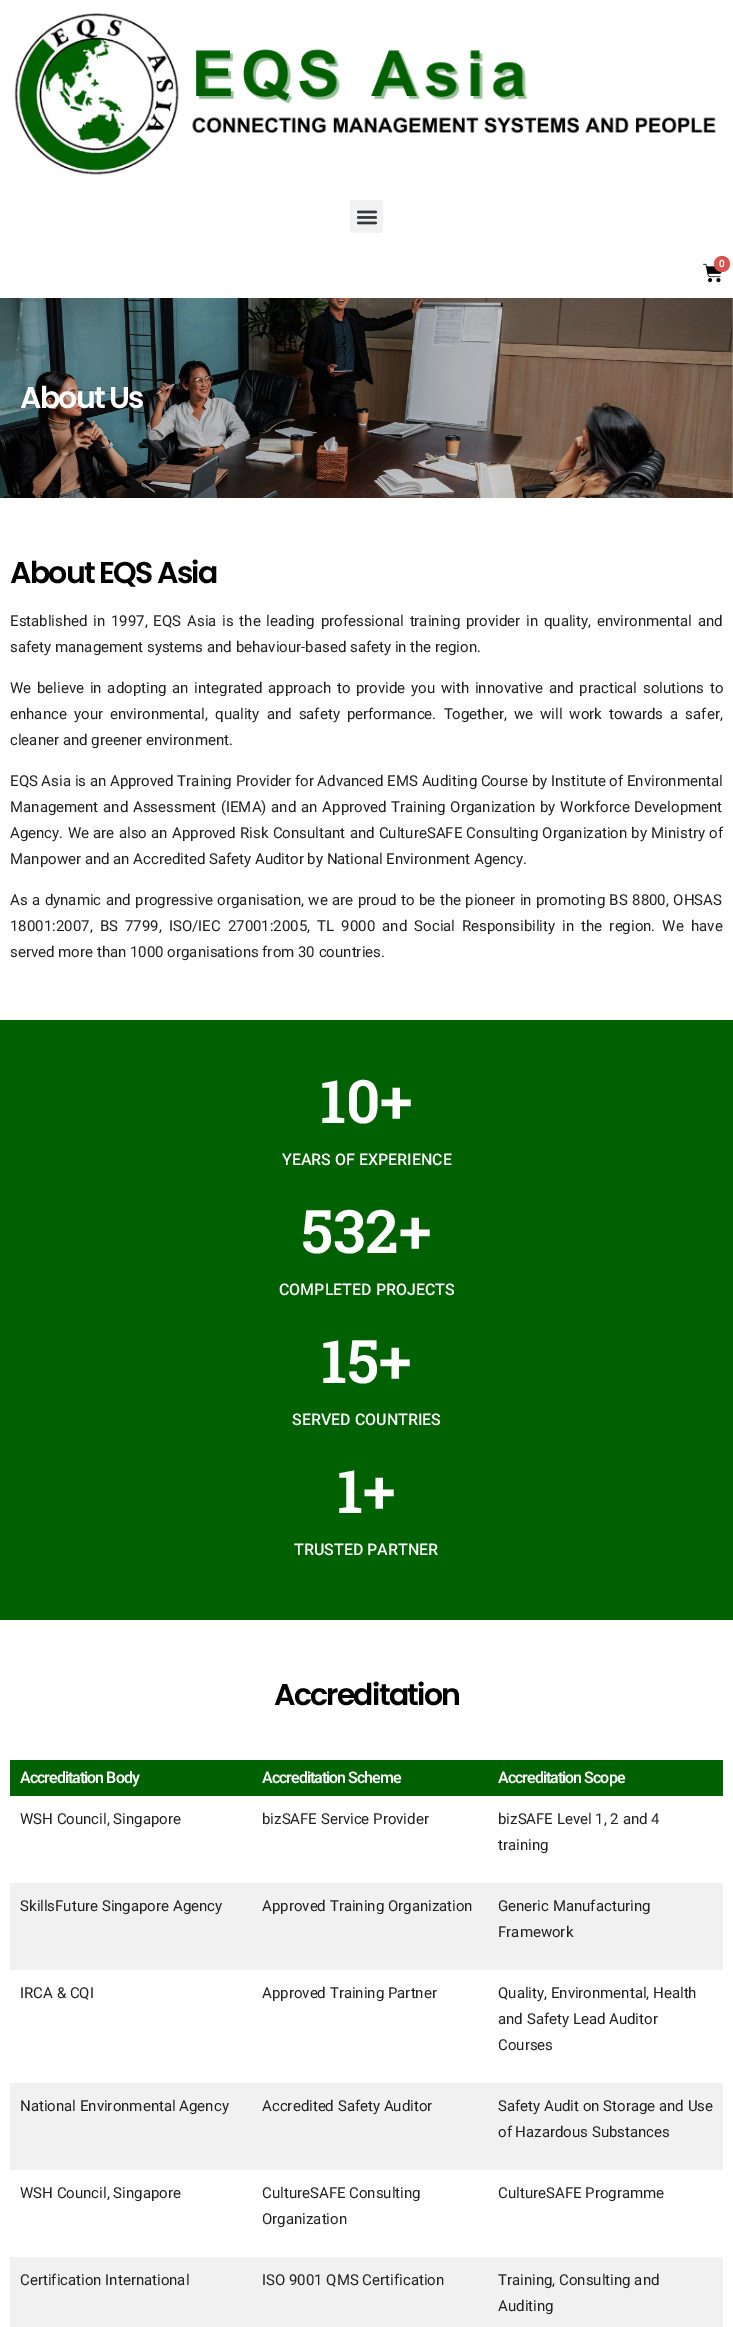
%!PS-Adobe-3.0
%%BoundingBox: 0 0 733 2327
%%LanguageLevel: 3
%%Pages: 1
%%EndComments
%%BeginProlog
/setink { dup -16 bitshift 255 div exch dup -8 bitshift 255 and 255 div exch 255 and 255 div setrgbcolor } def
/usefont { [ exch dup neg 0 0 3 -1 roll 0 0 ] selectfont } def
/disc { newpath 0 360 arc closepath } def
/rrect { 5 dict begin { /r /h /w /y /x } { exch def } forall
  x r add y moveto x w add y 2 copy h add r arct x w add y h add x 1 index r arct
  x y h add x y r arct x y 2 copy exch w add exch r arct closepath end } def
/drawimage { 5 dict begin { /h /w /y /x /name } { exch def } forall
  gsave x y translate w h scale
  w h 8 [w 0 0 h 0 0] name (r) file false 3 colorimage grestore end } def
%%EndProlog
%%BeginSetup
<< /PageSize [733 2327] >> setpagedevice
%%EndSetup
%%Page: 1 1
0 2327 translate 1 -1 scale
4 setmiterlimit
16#FFFFFF setink
0 0 733 2327 rectfill
(img1.raw) 14 12 702 163 drawimage
16#F2F2F2 setink
350 200 33 33 3 rrect fill
(img2.raw) 356 210 22 15 drawimage
(img3.raw) 703 263 19 20 drawimage
16#D9534F setink
722 264 8 disc fill
/Roboto-SemiBold 10 usefont
16#FFFFFF setink
719 267 moveto (0) show
(img4.raw) 0 298 733 200 drawimage
/Poppins-SemiBold 30 usefont
20 408 moveto -1.75 0 (About Us) ashow
16#000000 setink
10 583 moveto -1.75 0 (About EQS Asia) ashow
/Roboto-Regular 15 usefont
16#222222 setink
10 626 moveto 2.1 0 32 (Established in 1997, EQS Asia is the leading professional training provider in quality, environmental and) widthshow
10 652 moveto (safety management systems and behaviour-based safety in the region.) show
10 693 moveto 2.1 0 32 (We believe in adopting an integrated approach to provide you with innovative and practical solutions to) widthshow
10 719 moveto 3.4 0 32 (enhance your environmental, quality and safety performance. Together, we will work towards a safer,) widthshow
10 745 moveto (cleaner and greener environment.) show
10 786 moveto (EQS Asia is an Approved Training Provider for Advanced EMS Auditing Course by Institute of Environmental) show
10 812 moveto 1.1 0 32 (Management and Assessment \(IEMA\) and an Approved Training Organization by Workforce Development) widthshow
10 838 moveto 0.6 0 32 (Agency. We are also an Approved Risk Consultant and CultureSAFE Consulting Organization by Ministry of) widthshow
10 864 moveto (Manpower and an Accredited Safety Auditor by National Environment Agency.) show
10 905 moveto 0.75 0 32 (As a dynamic and progressive organisation, we are proud to be the pioneer in promoting BS 8800, OHSAS) widthshow
10 931 moveto 3.4 0 32 (18001:2007, BS 7799, ISO/IEC 27001:2005, TL 9000 and Social Responsibility in the region. We have) widthshow
10 957 moveto (served more than 1000 organisations from 30 countries.) show
16#006102 setink
0 1020 733 600 rectfill
/RobotoSlab-SemiBold 60 usefont
16#FFFFFF setink
320 1123 moveto (10+) show
/Roboto-Medium 16 usefont
282 1165 moveto (YEARS OF EXPERIENCE) show
/RobotoSlab-SemiBold 60 usefont
301 1253 moveto (532+) show
/Roboto-Medium 16 usefont
279 1295 moveto (COMPLETED PROJECTS) show
/RobotoSlab-SemiBold 60 usefont
321 1383 moveto (15+) show
/Roboto-Medium 16 usefont
292 1425 moveto (SERVED COUNTRIES) show
/RobotoSlab-SemiBold 60 usefont
337 1513 moveto (1+) show
/Roboto-Medium 16 usefont
294 1555 moveto (TRUSTED PARTNER) show
/Poppins-SemiBold 30 usefont
16#000000 setink
274 1705 moveto -1.75 0 (Accreditation) ashow
16#006102 setink
10 1760 713 36 rectfill
/Roboto-SemiBold 16 usefont
16#FFFFFF setink
20 1783 moveto -1 0 (Accreditation Body) ashow
262 1783 moveto -1 0 (Accreditation Scheme) ashow
498 1783 moveto -1 0 (Accreditation Scope) ashow
/Roboto-Regular 15 usefont
16#222222 setink
[
    [(WSH Council, Singapore) 20 1824]
    [(bizSAFE Service Provider) 262 1824]
    [(bizSAFE Level 1, 2 and 4) 498 1824]
    [(training) 498 1850]
] { aload pop moveto show } forall
16#F1F1F1 setink
10 1883 713 87 rectfill
16#222222 setink
[
    [(SkillsFuture Singapore Agency) 20 1911]
    [(Approved Training Organization) 262 1911]
    [(Generic Manufacturing) 498 1911]
    [(Framework) 498 1937]
    [(IRCA & CQI) 20 1998]
    [(Approved Training Partner) 262 1998]
    [(Quality, Environmental, Health) 498 1998]
    [(and Safety Lead Auditor) 498 2024]
    [(Courses) 498 2050]
] { aload pop moveto show } forall
16#F1F1F1 setink
10 2083 713 87 rectfill
16#222222 setink
[
    [(National Environmental Agency) 20 2111]
    [(Accredited Safety Auditor) 262 2111]
    [(Safety Audit on Storage and Use) 498 2111]
    [(of Hazardous Substances) 498 2137]
    [(WSH Council, Singapore) 20 2198]
    [(CultureSAFE Consulting) 262 2198]
    [(Organization) 262 2224]
    [(CultureSAFE Programme) 498 2198]
] { aload pop moveto show } forall
16#F1F1F1 setink
10 2257 713 70 rectfill
16#222222 setink
[
    [(Certification International) 20 2285]
    [(ISO 9001 QMS Certification) 262 2285]
    [(Training, Consulting and) 498 2285]
    [(Auditing) 498 2311]
] { aload pop moveto show } forall
showpage
%%EOF
